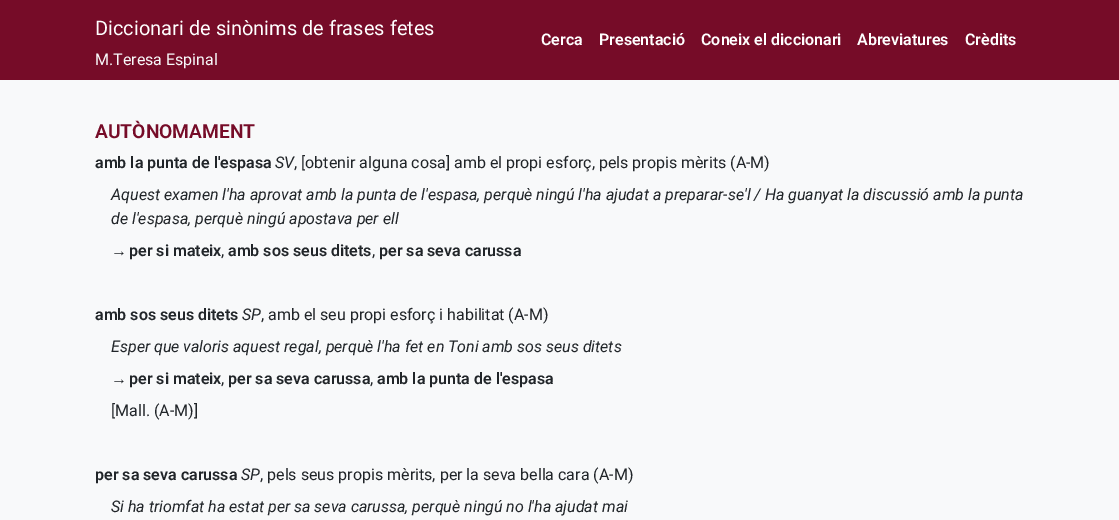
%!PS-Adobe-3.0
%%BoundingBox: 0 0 1119 520
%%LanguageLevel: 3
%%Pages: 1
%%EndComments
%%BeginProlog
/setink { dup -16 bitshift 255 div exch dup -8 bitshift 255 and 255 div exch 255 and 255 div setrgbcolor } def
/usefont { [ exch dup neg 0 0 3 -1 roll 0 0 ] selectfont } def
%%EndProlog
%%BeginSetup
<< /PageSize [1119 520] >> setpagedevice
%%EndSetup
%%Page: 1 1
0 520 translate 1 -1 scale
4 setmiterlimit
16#F8F9FA setink
0 0 1119 520 rectfill
16#760C28 setink
0 0 1119 80 rectfill
/Roboto-Regular 20 usefont
16#FFFFFF setink
95 35 moveto (Diccionari de sinònims de frases fetes) show
/Roboto-Regular 16 usefont
16#F8F9FA setink
95 65 moveto (M.Teresa Espinal) show
/Roboto-SemiBold 16 usefont
16#FFFFFF setink
[
    [(Cerca) 541 45]
    [(Presentació) 599 45]
    [(Coneix el diccionari) 701 45]
    [(Abreviatures) 857 45]
    [(Crèdits) 965 45]
] { aload pop moveto show } forall
/Roboto-SemiBold 19.25 usefont
16#760C28 setink
95 138 moveto (AUTÒNOMAMENT) show
/Roboto-SemiBold 16 usefont
16#212529 setink
95 168 moveto (amb la punta de l'espasa) show
/Roboto-Italic 16 usefont
275 168 moveto (SV) show
/Roboto-Regular 16 usefont
294 168 moveto (, [obtenir alguna cosa] amb el propi esforç, pels propis mèrits \(A-M\)) show
/Roboto-Italic 16 usefont
111 200 moveto (Aquest examen l'ha aprovat amb la punta de l'espasa, perquè ningú l'ha ajudat a preparar-se'l / Ha guanyat la discussió amb la punta) show
111 224 moveto (de l'espasa, perquè ningú apostava per ell) show
/LiberationSans-Regular 16 usefont
111 256 moveto (→) show
/Roboto-SemiBold 16 usefont
[
    [(per si mateix) 129 256]
    [(amb sos seus ditets) 228 256]
    [(per sa seva carussa) 379 256]
] { aload pop moveto show } forall
/Roboto-Regular 16 usefont
221 256 moveto (,) show
372 256 moveto (,) show
/Roboto-SemiBold 16 usefont
95 320 moveto (amb sos seus ditets) show
/Roboto-Italic 16 usefont
242 320 moveto (SP) show
/Roboto-Regular 16 usefont
261 320 moveto (, amb el seu propi esforç i habilitat \(A-M\)) show
/Roboto-Italic 16 usefont
111 352 moveto (Esper que valoris aquest regal, perquè l'ha fet en Toni amb sos seus ditets) show
/LiberationSans-Regular 16 usefont
111 384 moveto (→) show
/Roboto-SemiBold 16 usefont
[
    [(per si mateix) 129 384]
    [(per sa seva carussa) 228 384]
    [(amb la punta de l'espasa) 377 384]
] { aload pop moveto show } forall
/Roboto-Regular 16 usefont
[
    [(,) 221 384]
    [(,) 370 384]
    [([Mall. \(A-M\)]) 111 416]
] { aload pop moveto show } forall
/Roboto-SemiBold 16 usefont
95 480 moveto (per sa seva carussa) show
/Roboto-Italic 16 usefont
241 480 moveto (SP) show
/Roboto-Regular 16 usefont
260 480 moveto (, pels seus propis mèrits, per la seva bella cara \(A-M\)) show
/Roboto-Italic 16 usefont
111 512 moveto (Si ha triomfat ha estat per sa seva carussa, perquè ningú no l'ha ajudat mai) show
showpage
%%EOF
